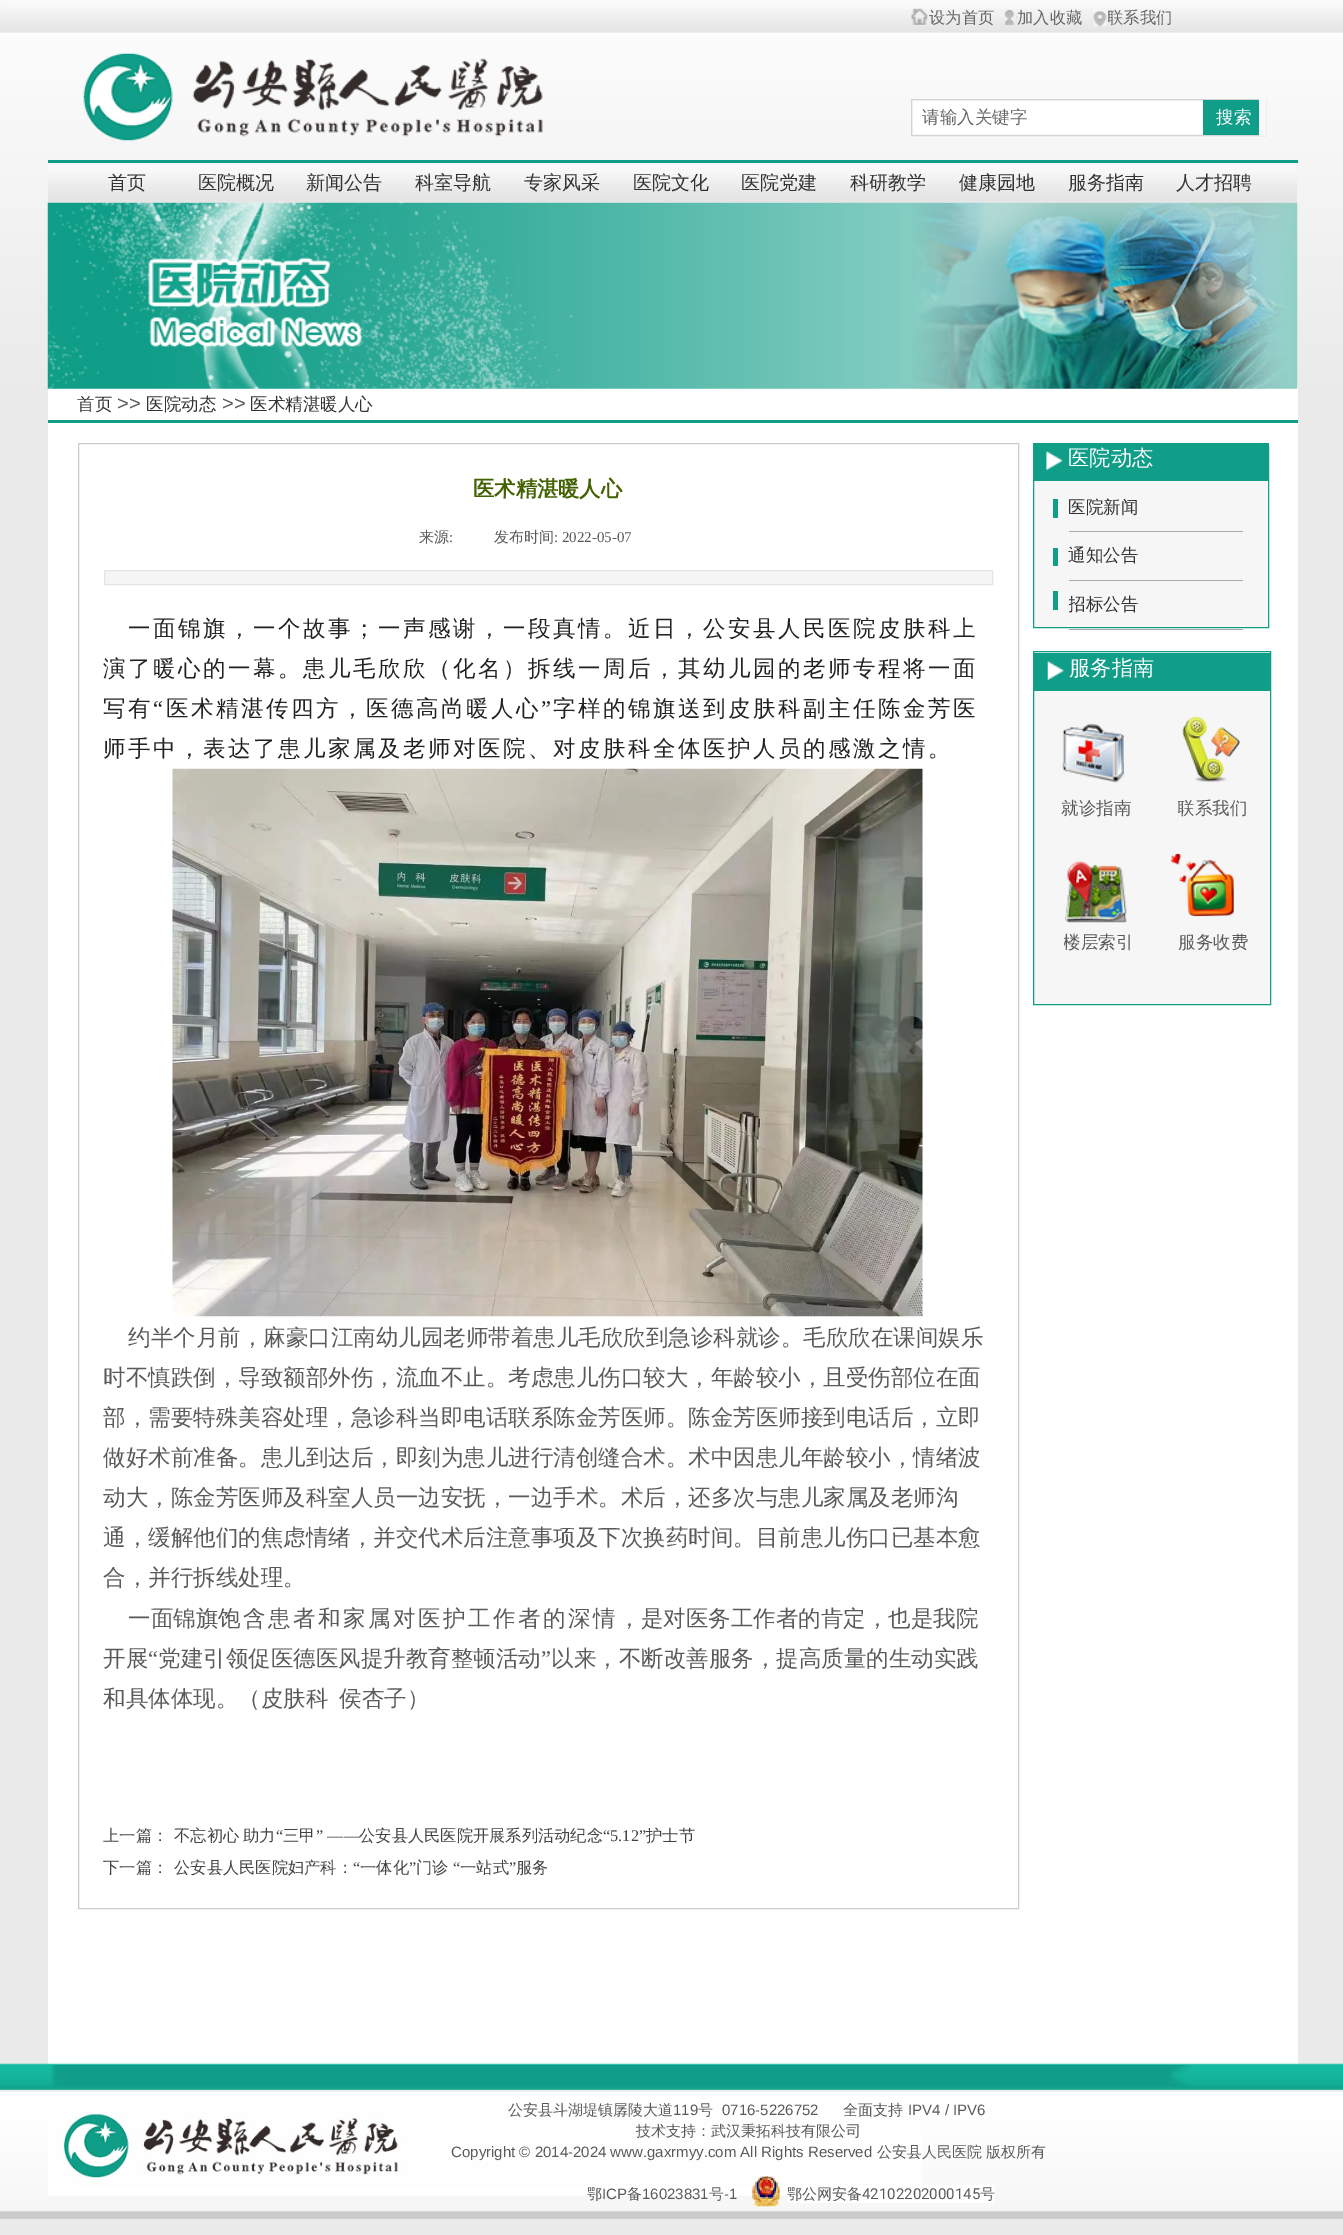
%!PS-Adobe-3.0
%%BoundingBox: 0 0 1343 2235
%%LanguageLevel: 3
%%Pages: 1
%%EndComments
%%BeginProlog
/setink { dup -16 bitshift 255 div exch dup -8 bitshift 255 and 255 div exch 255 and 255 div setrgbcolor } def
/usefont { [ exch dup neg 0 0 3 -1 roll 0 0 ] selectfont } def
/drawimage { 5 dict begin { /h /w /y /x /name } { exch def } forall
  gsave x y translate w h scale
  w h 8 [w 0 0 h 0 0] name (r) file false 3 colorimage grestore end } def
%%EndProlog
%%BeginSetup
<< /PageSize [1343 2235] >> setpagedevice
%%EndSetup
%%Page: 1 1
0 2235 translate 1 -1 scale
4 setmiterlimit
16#EAEAEA setink
0 0 1343 2235 rectfill
16#FFFFFF setink
48 386 1250 1678 rectfill
(img2.raw) 0 0 1343 33 drawimage
(img1.raw) 911 8 17 17 drawimage
/WenQuanYiZenHei-Medium 16.25 usefont
16#666666 setink
929 23 moveto (设为首页) show
(img3.raw) 1005 9 13 17 drawimage
1017 23 moveto (加入收藏) show
gsave
1108 6 80 39 rectclip
1107 23 moveto (联系我们) show
grestore
(img4.raw) 1093 10 14 17 drawimage
(img5.raw) 0 32 1343 355 drawimage
(img6.raw) 83 53 460 89 drawimage
16#D3D3D3 setink
911.5 99.5 354 36 rectstroke
16#FFFFFF setink
913 101 290 33 rectfill
/WenQuanYiZenHei-Medium 17.5 usefont
16#666666 setink
922 123 moveto (请输入关键字) show
16#109E88 setink
1203 100 56 35 rectfill
16#FFFFFF setink
1216 123 moveto (搜索) show
16#F8F8F8 setink
1259 99 7 37 rectfill
16#109E88 setink
48 160 1250 3 rectfill
(img8.raw) 47 202 1251 187 drawimage
(img9.raw) 176 202 3 1 drawimage
(img10.raw) 291 202 3 1 drawimage
(img11.raw) 400 202 3 1 drawimage
(img12.raw) 507 202 3 1 drawimage
(img13.raw) 618 202 4 1 drawimage
(img14.raw) 725 202 3 1 drawimage
(img15.raw) 832 202 3 1 drawimage
(img16.raw) 943 202 4 1 drawimage
(img17.raw) 1051 202 3 1 drawimage
(img18.raw) 1161 202 3 1 drawimage
(img7.raw) 48 165 1249 38 drawimage
/WenQuanYiZenHei-Medium 19 usefont
16#333333 setink
[
    [(首页) 108 189]
    [(医院概况) 198 189]
    [(新闻公告) 306 189]
    [(科室导航) 415 189]
    [(专家风采) 524 189]
    [(医院文化) 633 189]
    [(医院党建) 741 189]
    [(科研教学) 850 189]
    [(健康园地) 959 189]
    [(服务指南) 1068 189]
    [(人才招聘) 1176 189]
] { aload pop moveto show } forall
/WenQuanYiZenHei-Medium 17.5 usefont
77 410 moveto (首页) show
/LiberationSans-Regular 20 usefont
16#5A5A5A setink
117 410 moveto (>>) show
/WenQuanYiZenHei-Medium 17.5 usefont
16#333333 setink
146 410 moveto (医院动态) show
/LiberationSans-Regular 20 usefont
16#5A5A5A setink
222 410 moveto (>>) show
/WenQuanYiZenHei-Medium 17.5 usefont
16#333333 setink
250 410 moveto (医术精湛暖人心) show
16#109E88 setink
48 420 1250 3 rectfill
16#F6F6F6 setink
1034 481 234 146 rectfill
16#109E88 setink
1033.5 446.5 235 181 rectstroke
1033 443 236 38 rectfill
(img19.raw) 1046 451 17 19 drawimage
/WenQuanYiZenHei-Medium 21.25 usefont
16#FFFFFF setink
1068 465 moveto (医院动态) show
16#CCCCCC setink
78.5 443.5 940 1465 rectstroke
/WenQuanYiZenHei-Bold 21.25 usefont
16#426100 setink
473 496 moveto (医术精湛暖人心) show
/WenQuanYiZenHei-Medium 15 usefont
16#5A5A5A setink
419 542 moveto (来源) show
/LiberationSerif-Regular 15 usefont
449 542 moveto (:) show
/WenQuanYiZenHei-Medium 15 usefont
494 542 moveto (发布时间) show
/LiberationSerif-Regular 15 usefont
554 542 moveto (: 2022-05-07) show
16#F5F5F5 setink
104.5 570.5 moveto 992.5 570.5 lineto 992.5 584.5 lineto 104.5 584.5 lineto closepath gsave fill grestore
16#E5E5E5 setink
stroke
/WenQuanYiZenHei-Medium 22.5 usefont
16#222222 setink
128 636 moveto 2.5 0 (一面锦旗，一个故事；一声感谢，一段真情。近日，公安县人民医院皮肤科上) ashow
103 676 moveto 2.5 0 (演了暖心的一幕。患儿毛欣欣（化名）拆线一周后，其幼儿园的老师专程将一面) ashow
103 716 moveto 2.5 0 (写有) ashow
/LiberationSerif-Regular 22.5 usefont
153 716 moveto 2.5 0 (“) ashow
/WenQuanYiZenHei-Medium 22.5 usefont
166 716 moveto 2.5 0 (医术精湛传四方，医德高尚暖人心) ashow
/LiberationSerif-Regular 22.5 usefont
541 716 moveto 2.5 0 (”) ashow
/WenQuanYiZenHei-Medium 22.5 usefont
553 716 moveto 2.5 0 (字样的锦旗送到皮肤科副主任陈金芳医) ashow
103 756 moveto 2.5 0 (师手中，表达了患儿家属及老师对医院、对皮肤科全体医护人员的感激之情。) ashow
(img20.raw) 172 768 751 549 drawimage
16#5A5A5A setink
[
    [(约半个月前，麻豪口江南幼儿园老师带着患儿毛欣欣到急诊科就诊。毛欣欣在课间娱乐) 128 1345]
    [(时不慎跌倒，导致额部外伤，流血不止。考虑患儿伤口较大，年龄较小，且受伤部位在面) 103 1385]
    [(部，需要特殊美容处理，急诊科当即电话联系陈金芳医师。陈金芳医师接到电话后，立即) 103 1425]
    [(做好术前准备。患儿到达后，即刻为患儿进行清创缝合术。术中因患儿年龄较小，情绪波) 103 1465]
    [(动大，陈金芳医师及科室人员一边安抚，一边手术。术后，还多次与患儿家属及老师沟) 103 1505]
    [(通，缓解他们的焦虑情绪，并交代术后注意事项及下次换药时间。目前患儿伤口已基本愈) 103 1545]
    [(合，并行拆线处理。) 103 1585]
    [(一面锦旗) 128 1626]
] { aload pop moveto show } forall
218 1626 moveto 2.5 0 (饱含患者和家属对医护工作者的深情) ashow
618 1626 moveto (，是对医务工作者的肯定，也是我院) show
103 1666 moveto (开展) show
/LiberationSerif-Regular 22.5 usefont
148 1666 moveto (“) show
/WenQuanYiZenHei-Medium 22.5 usefont
158 1666 moveto (党建引领促医德医风提升教育整顿活动) show
/LiberationSerif-Regular 22.5 usefont
541 1666 moveto (”) show
/WenQuanYiZenHei-Medium 22.5 usefont
[
    [(以来，不断改善服务，提高质量的生动实践) 551 1666]
    [(和具体体现。（皮肤科) 103 1706]
    [(侯杏子）) 339 1706]
] { aload pop moveto show } forall
/WenQuanYiZenHei-Medium 16.25 usefont
16#434343 setink
[
    [(上一篇：) 103 1841]
    [(不忘初心) 174 1841]
    [(助力) 243 1841]
] { aload pop moveto show } forall
/LiberationSerif-Regular 16.25 usefont
276 1841 moveto (“) show
/WenQuanYiZenHei-Medium 16.25 usefont
283 1841 moveto (三甲) show
/LiberationSerif-Regular 16.25 usefont
316 1841 moveto (” ——) show
/WenQuanYiZenHei-Medium 16.25 usefont
359 1841 moveto (公安县人民医院开展系列活动纪念) show
/LiberationSerif-Regular 16.25 usefont
603 1841 moveto (“5.12”) show
/WenQuanYiZenHei-Medium 16.25 usefont
[
    [(护士节) 646 1841]
    [(下一篇：) 103 1873]
    [(公安县人民医院妇产科：) 174 1873]
] { aload pop moveto show } forall
/LiberationSerif-Regular 16.25 usefont
353 1873 moveto (“) show
/WenQuanYiZenHei-Medium 16.25 usefont
360 1873 moveto (一体化) show
/LiberationSerif-Regular 16.25 usefont
409 1873 moveto (”) show
/WenQuanYiZenHei-Medium 16.25 usefont
416 1873 moveto (门诊) show
/LiberationSerif-Regular 16.25 usefont
453 1873 moveto (“) show
/WenQuanYiZenHei-Medium 16.25 usefont
460 1873 moveto (一站式) show
/LiberationSerif-Regular 16.25 usefont
509 1873 moveto (”) show
/WenQuanYiZenHei-Medium 16.25 usefont
516 1873 moveto (服务) show
16#109E88 setink
1053 499 5 19 rectfill
16#AAAAAA setink
1069 531 174 1 rectfill
/WenQuanYiZenHei-Medium 17.5 usefont
16#333333 setink
1068 513 moveto (医院新闻) show
16#AAAAAA setink
1069 580 174 1 rectfill
16#333333 setink
1068 561 moveto (通知公告) show
16#AAAAAA setink
1069 629 174 1 rectfill
gsave
1069 581 174 48 rectclip
16#333333 setink
1068 610 moveto (招标公告) show
grestore
16#109E88 setink
1053 548 5 18 rectfill
1053 591 5 19 rectfill
16#F6F6F6 setink
1033.5 651.5 moveto 1270.5 651.5 lineto 1270.5 1004.5 lineto 1033.5 1004.5 lineto closepath gsave fill grestore
16#109E88 setink
stroke
1034 653 236 38 rectfill
(img21.raw) 1047 661 17 19 drawimage
/WenQuanYiZenHei-Medium 21.25 usefont
16#FFFFFF setink
1069 675 moveto (服务指南) show
(img22.raw) 1062 723 63 60 drawimage
(img23.raw) 1182 716 58 67 drawimage
/WenQuanYiZenHei-Medium 17.5 usefont
16#5A5A5A setink
1061 814 moveto (就诊指南) show
gsave
1178 796 76 33 rectclip
1177 814 moveto (联系我们) show
grestore
(img24.raw) 1065 861 62 62 drawimage
(img25.raw) 1171 853 63 64 drawimage
gsave
1064 930 76 34 rectclip
1063 948 moveto (楼层索引) show
grestore
1178 948 moveto (服务收费) show
(img26.raw) 0 2063 1343 27 drawimage
(img27.raw) 51 2065 1142 22 drawimage
16#CCCCCC setink
0 2091 1343 128 rectfill
(img28.raw) 0 2091 1343 121 drawimage
(img29.raw) 48 2114 874 82 drawimage
/WenQuanYiZenHei-Medium 15 usefont
16#5A5A5A setink
508 2115 moveto (公安县斗湖堤镇孱陵大道) show
/LiberationSans-Regular 15 usefont
673 2115 moveto (119) show
/WenQuanYiZenHei-Medium 15 usefont
698 2115 moveto (号) show
/LiberationSans-Regular 15 usefont
722 2115 moveto (0716-5226752) show
/WenQuanYiZenHei-Medium 15 usefont
843 2115 moveto (全面支持) show
/LiberationSans-Regular 15 usefont
908 2115 moveto (IPV4 / IPV6) show
/WenQuanYiZenHei-Medium 15 usefont
636 2136 moveto (技术支持：武汉秉拓科技有限公司) show
/LiberationSans-Regular 15 usefont
451 2157 moveto (Copyright © 2014-2024 www.gaxrmyy.com All Rights Reserved) show
/WenQuanYiZenHei-Medium 15 usefont
[
    [(公安县人民医院) 877 2157]
    [(版权所有) 986 2157]
    [(鄂) 587 2199]
] { aload pop moveto show } forall
/LiberationSans-Regular 15 usefont
602 2199 moveto (ICP) show
/WenQuanYiZenHei-Medium 15 usefont
627 2199 moveto (备) show
/LiberationSans-Regular 15 usefont
642 2199 moveto (16023831) show
/WenQuanYiZenHei-Medium 15 usefont
709 2199 moveto (号) show
/LiberationSans-Regular 15 usefont
724 2199 moveto (-1) show
16#FFFFFF setink
788 2185 207 18 rectfill
/WenQuanYiZenHei-Medium 15 usefont
16#5A5A5A setink
787 2199 moveto (鄂公网安备) show
/Roboto-Regular 15 usefont
862 2199 moveto (42102202000145) show
/WenQuanYiZenHei-Medium 15 usefont
980 2199 moveto (号) show
(img30.raw) 752 2176 28 31 drawimage
showpage
%%EOF
